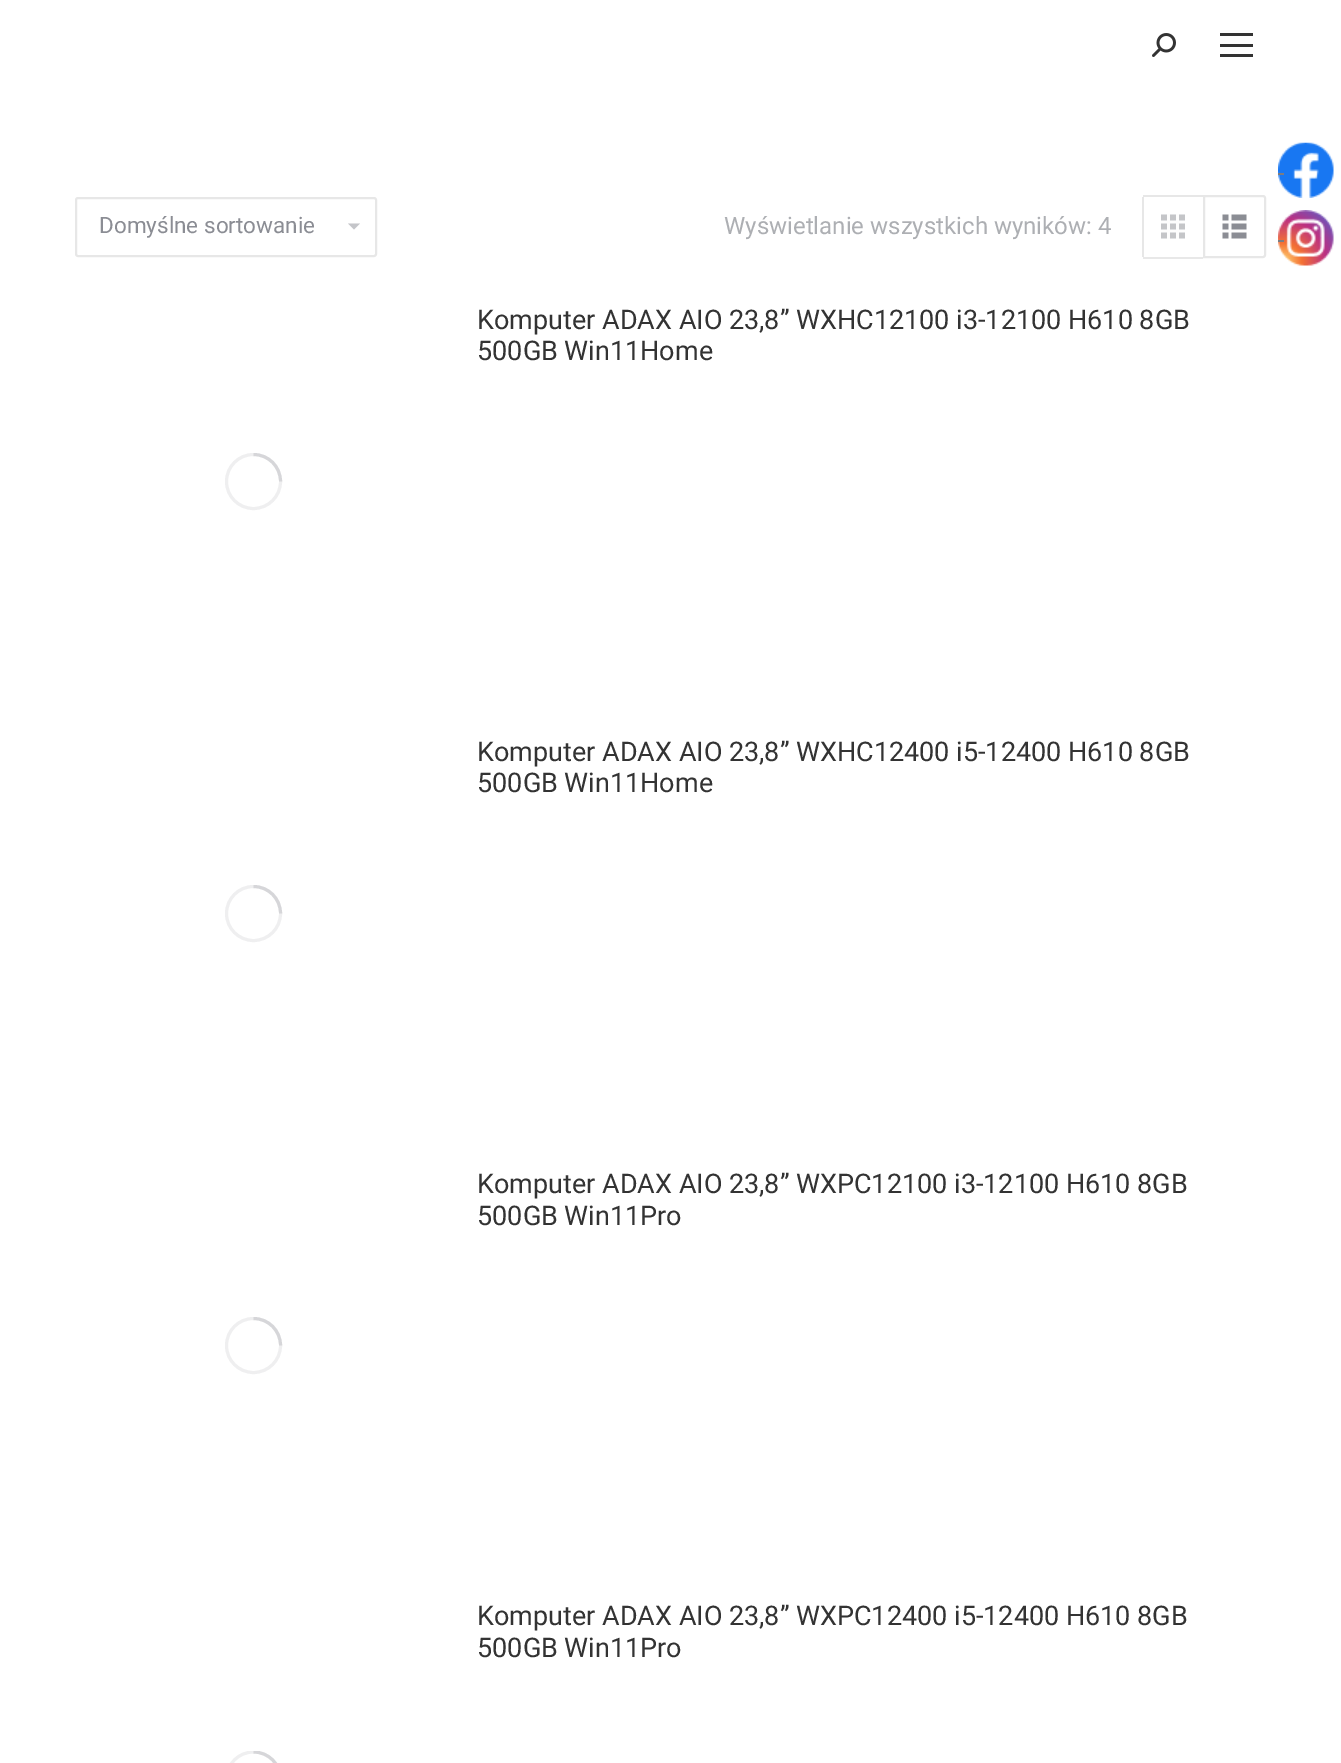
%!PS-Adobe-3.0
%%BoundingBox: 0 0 1341 1763
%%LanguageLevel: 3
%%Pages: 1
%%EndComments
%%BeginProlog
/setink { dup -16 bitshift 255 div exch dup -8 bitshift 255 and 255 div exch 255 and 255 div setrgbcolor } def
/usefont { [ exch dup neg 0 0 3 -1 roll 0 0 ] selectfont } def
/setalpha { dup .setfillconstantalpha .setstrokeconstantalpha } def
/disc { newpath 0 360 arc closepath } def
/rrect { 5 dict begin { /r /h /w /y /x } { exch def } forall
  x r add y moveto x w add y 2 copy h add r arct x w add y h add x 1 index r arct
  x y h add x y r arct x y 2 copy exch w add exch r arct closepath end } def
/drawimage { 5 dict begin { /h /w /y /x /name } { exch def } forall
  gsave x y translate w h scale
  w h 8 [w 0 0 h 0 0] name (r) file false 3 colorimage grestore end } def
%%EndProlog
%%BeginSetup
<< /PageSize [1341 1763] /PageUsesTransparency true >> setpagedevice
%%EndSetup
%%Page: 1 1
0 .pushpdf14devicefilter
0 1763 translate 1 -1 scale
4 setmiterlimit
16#FFFFFF setink
0 0 1341 1763 rectfill
(img1.raw) 1278 142 56 56 drawimage
16#7B7C82 setink
1278 173 6 2 rectfill
(img2.raw) 1152 33 24 24 drawimage
[
    [1220 33 33 3 16#333333]
    [1220 44 33 3 16#333333]
    [1220 54 33 3 16#333333]
] { aload pop setink rectfill } forall
16#C4C5C9 setink
348 223.5 moveto 354 229.5 lineto 360 223.5 lineto closepath fill
16#E7E7E7 setink
2 setlinewidth
76 198 300 58 2 rrect stroke
/Roboto-Regular 22.5 usefont
16#8B8D94 setink
99 233 moveto (Domyślne sortowanie) show
/Roboto-Regular 24 usefont
16#ADAFB3 setink
724 234 moveto (Wyświetlanie wszystkich wyników: 4) show
[
    [1143 195 60 2 16#E7E7E7]
    [1143 257 60 2 16#E8E8E8]
    [1142 197 2 60 16#E7E7E7]
] { aload pop setink rectfill } forall
(img3.raw) 1161 214 24 25 drawimage
1204 196 moveto 1263 196 lineto 1264 196 1265 197 1265 198 curveto 1265 255 lineto 1265 256 1264 257 1263 257 curveto 1204 257 lineto closepath stroke
(img4.raw) 1222 214 25 25 drawimage
/Roboto-Regular 27 usefont
16#333333 setink
477 329 moveto (Komputer ADAX AIO 23,8” WXHC12100 i3-12100 H610 8GB) show
477 360 moveto (500GB Win11Home) show
16#EFEFF0 setink
3 setlinewidth
253.5 481.5 27 disc stroke
0.25 setalpha
16#8B8D94 setink
280.5 481.5 moveto 280.5 466.5 268.5 454.5 253.5 454.5 curveto stroke
1 setalpha
16#333333 setink
477 761 moveto (Komputer ADAX AIO 23,8” WXHC12400 i5-12400 H610 8GB) show
477 792 moveto (500GB Win11Home) show
16#EFEFF0 setink
253.5 913.5 27 disc stroke
0.25 setalpha
16#8B8D94 setink
280.5 913.5 moveto 280.5 898.5 268.5 886.5 253.5 886.5 curveto stroke
1 setalpha
16#333333 setink
477 1193 moveto (Komputer ADAX AIO 23,8” WXPC12100 i3-12100 H610 8GB) show
477 1225 moveto (500GB Win11Pro) show
16#EFEFF0 setink
253.5 1345.5 27 disc stroke
0.25 setalpha
16#8B8D94 setink
280.5 1345.5 moveto 280.5 1330.5 268.5 1318.5 253.5 1318.5 curveto stroke
1 setalpha
16#333333 setink
477 1625 moveto (Komputer ADAX AIO 23,8” WXPC12400 i5-12400 H610 8GB) show
477 1657 moveto (500GB Win11Pro) show
gsave
225 1751 57 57 rectclip
16#EFEFF0 setink
253.5 1779 27 disc stroke
0.25 setalpha
16#8B8D94 setink
280.5 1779 moveto 280.5 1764 268.5 1752 253.5 1752 curveto stroke
grestore
(img5.raw) 1278 210 56 56 drawimage
16#7B7C82 setink
1278 240 6 2 rectfill
.poppdf14devicefilter showpage
%%EOF
